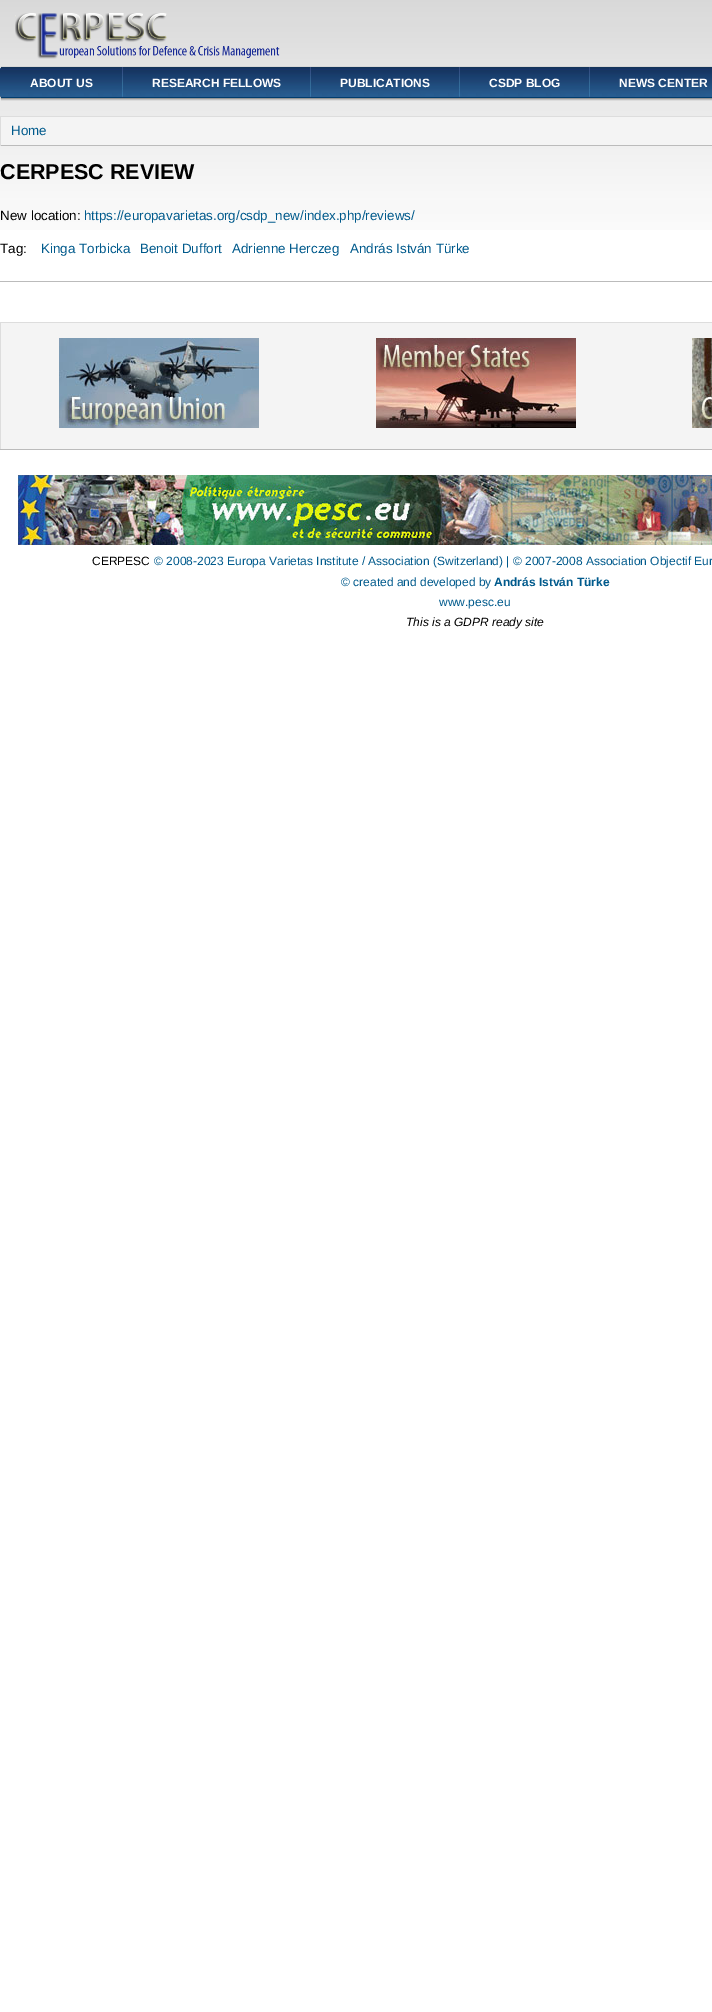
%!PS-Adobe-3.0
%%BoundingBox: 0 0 712 2012
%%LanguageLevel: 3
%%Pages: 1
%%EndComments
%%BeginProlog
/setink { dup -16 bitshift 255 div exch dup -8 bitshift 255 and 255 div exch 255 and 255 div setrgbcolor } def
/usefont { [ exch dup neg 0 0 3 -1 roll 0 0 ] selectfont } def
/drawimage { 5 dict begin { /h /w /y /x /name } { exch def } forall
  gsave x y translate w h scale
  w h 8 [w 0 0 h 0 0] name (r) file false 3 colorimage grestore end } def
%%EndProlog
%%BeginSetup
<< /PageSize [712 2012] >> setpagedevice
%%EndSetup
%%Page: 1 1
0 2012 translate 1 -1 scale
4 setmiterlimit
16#FFFFFF setink
0 0 712 2012 rectfill
(img1.raw) 0 0 712 230 drawimage
(img2.raw) 15 13 265 46 drawimage
(img3.raw) 1 66 711 35 drawimage
(img4.raw) 0 66 1 35 drawimage
(img5.raw) 122 67 1 31 drawimage
/LiberationSans-Bold 12 usefont
30 87 moveto (ABOUT US) show
(img5.raw) 310 67 1 31 drawimage
152 87 moveto (RESEARCH FELLOWS) show
(img5.raw) 459 67 1 31 drawimage
340 87 moveto (PUBLICATIONS) show
(img5.raw) 589 67 1 31 drawimage
489 87 moveto (CSDP BLOG) show
619 87 moveto (NEWS CENTER) show
[
    [1 117 711 28 16#F4F4F4]
    [0 116 712 1 16#DDDDDD]
    [0 145 712 1 16#BBBBBB]
    [0 116 1 30 16#DDDDDD]
] { aload pop setink rectfill } forall
/LiberationSans-Regular 13.4 usefont
16#005A8C setink
11 135 moveto (Home) show
/LiberationSans-Bold 21.5 usefont
16#000000 setink
0 179 moveto (CERPESC REVIEW) show
16#BBBBBB setink
0 281 712 1 rectfill
/LiberationSans-Regular 13.4 usefont
16#000000 setink
0 220 moveto (New location:) show
16#005A8C setink
84 220 moveto (https://europavarietas.org/csdp_new/index.php/reviews/) show
16#000000 setink
0 253 moveto (Tag:) show
16#005A8C setink
[
    [(Kinga Torbicka) 41 253]
    [(Benoit Duffort) 140 253]
    [(Adrienne Herczeg) 232 253]
    [(András István Türke) 350 253]
] { aload pop moveto show } forall
[
    [1 323 711 126 16#F4F4F4]
    [0 322 712 1 16#DDDDDD]
    [0 322 1 127 16#DDDDDD]
] { aload pop setink rectfill } forall
(img6.raw) 59 338 200 90 drawimage
(img7.raw) 376 338 200 90 drawimage
(img8.raw) 692 338 20 90 drawimage
16#BBBBBB setink
0 449 712 1 rectfill
(img9.raw) 18 475 694 70 drawimage
/LiberationSans-Regular 12 usefont
16#000000 setink
92 565 moveto (CERPESC) show
16#005A8C setink
154 565 moveto (© 2008-2023 Europa Varietas Institute / Association \(Switzerland\) | © 2007-2008 Association Objectif Eur) show
341 586 moveto (© created and developed by) show
/LiberationSans-Bold 12 usefont
494 586 moveto (András István Türke) show
/LiberationSans-Regular 12 usefont
439 606 moveto (www.pesc.eu) show
/LiberationSans-Italic 12 usefont
16#000000 setink
406 626 moveto (This is a GDPR ready site) show
showpage
%%EOF
